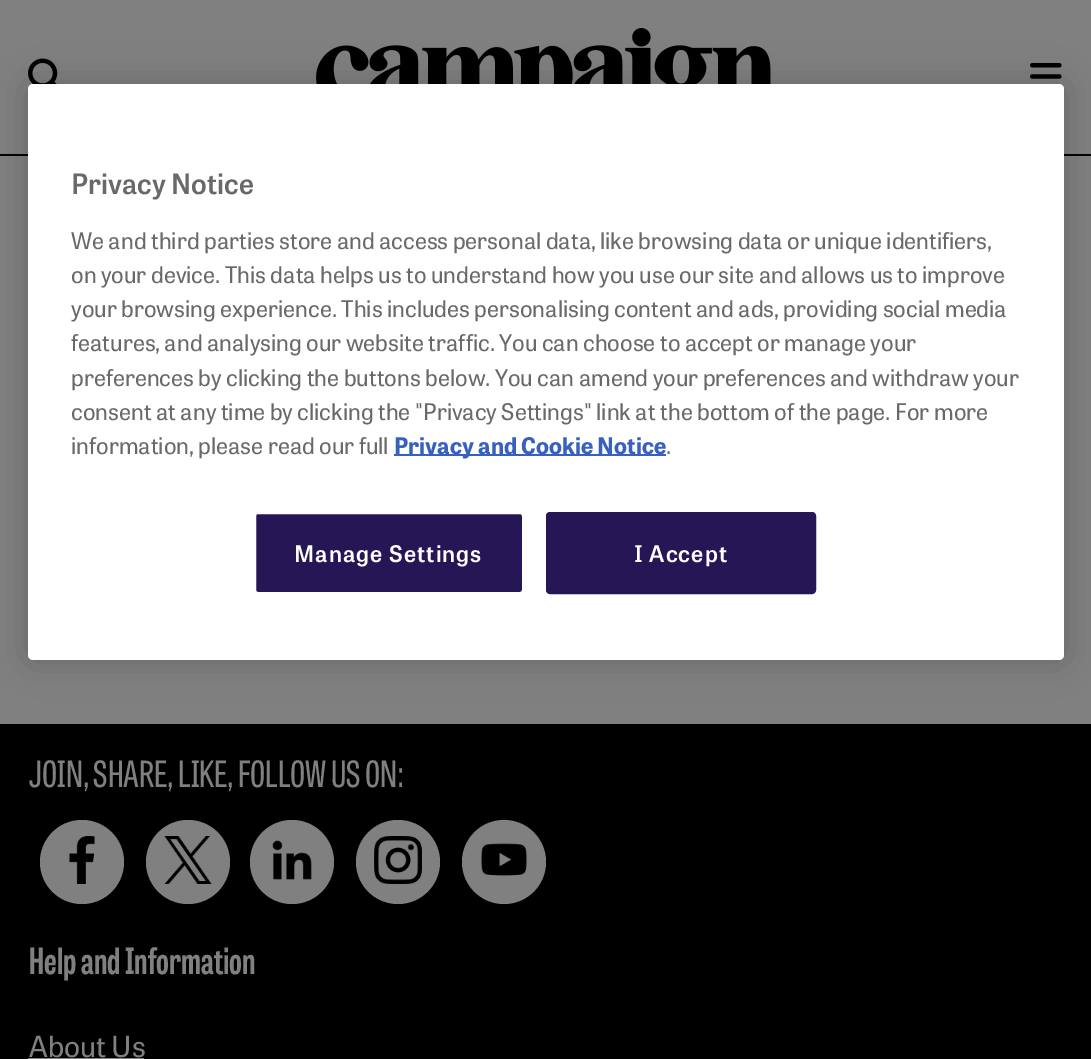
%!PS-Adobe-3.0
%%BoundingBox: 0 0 1091 1059
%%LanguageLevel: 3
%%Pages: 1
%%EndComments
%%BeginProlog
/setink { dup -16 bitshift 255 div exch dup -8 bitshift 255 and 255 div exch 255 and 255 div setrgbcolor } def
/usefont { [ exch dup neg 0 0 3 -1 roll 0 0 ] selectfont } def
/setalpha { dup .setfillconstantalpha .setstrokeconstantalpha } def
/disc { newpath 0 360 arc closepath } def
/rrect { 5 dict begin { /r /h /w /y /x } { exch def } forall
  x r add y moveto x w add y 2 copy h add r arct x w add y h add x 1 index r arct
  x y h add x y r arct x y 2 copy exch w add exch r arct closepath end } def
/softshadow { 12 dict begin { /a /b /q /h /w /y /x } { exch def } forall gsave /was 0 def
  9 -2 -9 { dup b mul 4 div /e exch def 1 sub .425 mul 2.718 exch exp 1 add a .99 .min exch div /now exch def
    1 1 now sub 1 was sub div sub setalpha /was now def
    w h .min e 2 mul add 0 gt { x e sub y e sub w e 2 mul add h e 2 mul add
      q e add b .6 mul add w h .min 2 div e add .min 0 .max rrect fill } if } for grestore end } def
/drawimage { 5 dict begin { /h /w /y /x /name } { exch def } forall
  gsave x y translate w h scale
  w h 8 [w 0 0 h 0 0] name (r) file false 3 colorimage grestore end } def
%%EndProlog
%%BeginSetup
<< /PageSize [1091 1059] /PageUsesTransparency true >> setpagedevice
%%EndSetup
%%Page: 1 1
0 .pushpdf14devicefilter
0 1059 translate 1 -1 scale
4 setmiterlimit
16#808080 setink
0 0 1091 1059 rectfill
16#000000 setink
0 154 1091 2 rectfill
(img1.raw) 28 58 30 26 drawimage
(img2.raw) 316 28 455 56 drawimage
(img3.raw) 1030 63 32 16 drawimage
28 84 1036 576 5 18 0.2 softshadow
16#FFFFFF setink
28 84 1036 576 5 rrect fill
/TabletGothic-SemiBold 28 usefont
16#696969 setink
71 194 moveto (Privacy Notice) show
/TabletGothic-Regular 22.75 usefont
[
    [(We and third parties store and access personal data, like browsing data or unique identifiers,) 71 249]
    [(on your device. This data helps us to understand how you use our site and allows us to improve) 71 283]
    [(your browsing experience. This includes personalising content and ads, providing social media) 71 317]
    [(features, and analysing our website traffic. You can choose to accept or manage your) 71 351]
    [(preferences by clicking the buttons below. You can amend your preferences and withdraw your) 71 386]
    [(consent at any time by clicking the "Privacy Settings" link at the bottom of the page. For more) 71 420]
    [(information, please read our full) 71 454]
] { aload pop moveto show } forall
16#3860BE setink
394 454 272 2 rectfill
/TabletGothic-Bold 22.75 usefont
394 454 moveto (Privacy and Cookie Notice) show
/TabletGothic-Regular 22.75 usefont
16#696969 setink
666 454 moveto (.) show
16#261656 setink
255 513 268 80 3 rrect gsave fill grestore
16#FFFFFF setink
2 setlinewidth
stroke
/TabletGothic-SemiBold 22.75 usefont
294 562 moveto 1.1 0 (Manage Settings) ashow
16#261656 setink
547 513 268 80 3 rrect gsave fill grestore
stroke
16#FFFFFF setink
634 562 moveto 1.1 0 (I Accept) ashow
16#000000 setink
0 724 1091 335 rectfill
/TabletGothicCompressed-Regular 36 usefont
16#808080 setink
29 787 moveto (JOIN, SHARE, LIKE, FOLLOW US ON:) show
82 862 42 disc fill
(img4.raw) 69 836 26 48 drawimage
188 862 42 disc fill
(img5.raw) 164 836 48 48 drawimage
292 862 42 disc fill
(img6.raw) 272 840 40 40 drawimage
398 862 42 disc fill
(img7.raw) 374 836 48 48 drawimage
504 862 42 disc fill
(img8.raw) 481 843 46 33 drawimage
/TabletGothicCompressed-Bold 36 usefont
29 974 moveto (Help and Information) show
/TabletGothic-Regular 29 usefont
29 1057 moveto (About Us) show
28 1058 116 1 rectfill
.poppdf14devicefilter showpage
%%EOF
